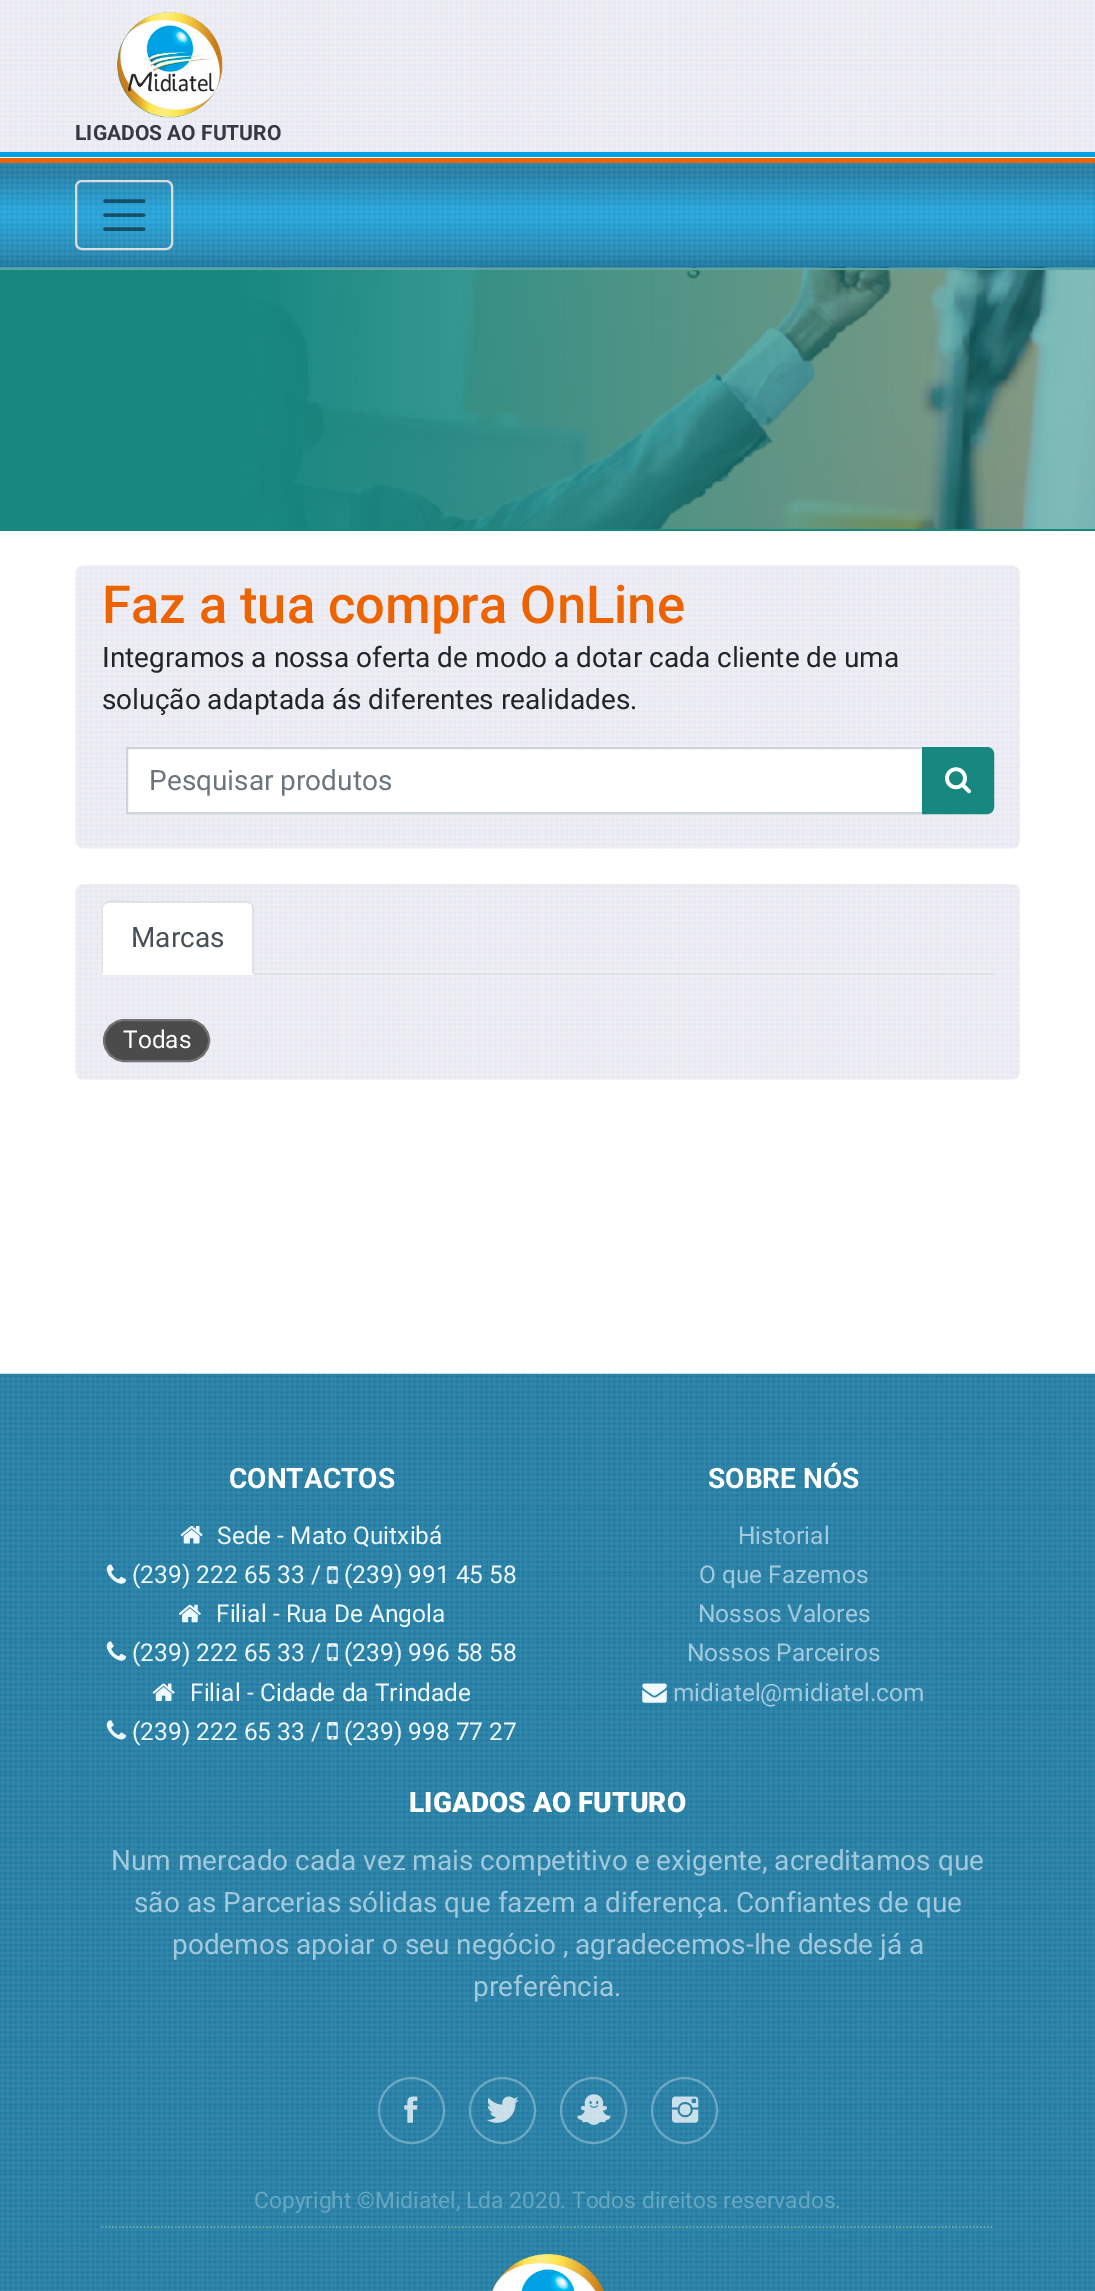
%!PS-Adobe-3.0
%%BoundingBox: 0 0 1095 2291
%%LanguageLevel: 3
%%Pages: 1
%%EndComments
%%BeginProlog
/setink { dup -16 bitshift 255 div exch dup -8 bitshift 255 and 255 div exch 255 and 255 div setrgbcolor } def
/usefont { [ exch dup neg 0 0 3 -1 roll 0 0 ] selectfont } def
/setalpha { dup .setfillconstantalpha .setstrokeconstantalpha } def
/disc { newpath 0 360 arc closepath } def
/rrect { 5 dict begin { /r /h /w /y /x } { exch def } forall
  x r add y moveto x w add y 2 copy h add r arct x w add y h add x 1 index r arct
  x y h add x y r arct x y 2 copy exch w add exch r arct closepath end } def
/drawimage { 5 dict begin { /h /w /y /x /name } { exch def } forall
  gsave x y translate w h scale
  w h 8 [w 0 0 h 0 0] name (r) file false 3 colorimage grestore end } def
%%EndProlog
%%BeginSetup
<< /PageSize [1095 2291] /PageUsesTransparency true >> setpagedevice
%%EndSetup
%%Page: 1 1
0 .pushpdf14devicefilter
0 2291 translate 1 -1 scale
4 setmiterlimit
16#FFFFFF setink
0 0 1095 2291 rectfill
16#EFF8F7 setink
0 157 1095 1 rectfill
(img1.raw) 0 0 1095 158 drawimage
16#00A0E4 setink
0 152 1095 5 rectfill
(img2.raw) 117 12 106 106 drawimage
/Roboto-Bold 21 usefont
16#343A40 setink
75 140 moveto (LIGADOS AO FUTURO) show
(img3.raw) 0 163 1095 105 drawimage
16#ED6300 setink
0 158 1095 5 rectfill
16#DDDDDD setink
2 setlinewidth
76 181 96 68 6 rrect stroke
0.5 setalpha
16#000000 setink
3.5 setlinewidth
1 setlinecap
105 201 moveto 143.5 201 lineto 105 215 moveto 143.5 215 lineto 105 229 moveto 143.5 229 lineto stroke
1 setalpha
(img4.raw) 0 267 1095 262 drawimage
16#57A6A0 setink
0 268 1095 2 rectfill
16#178880 setink
0 529 1095 2 rectfill
(img5.raw) 75 565 945 284 drawimage
/Roboto-Medium 52.5 usefont
16#ED6300 setink
102 623 moveto (Faz a tua compra OnLine) show
/Roboto-Regular 28 usefont
16#212529 setink
102 667 moveto (Integramos a nossa oferta de modo a dotar cada cliente de uma) show
102 709 moveto (solução adaptada ás diferentes realidades.) show
16#FFFFFF setink
127 748 moveto 923 748 lineto 923 813 lineto 127 813 lineto closepath gsave fill grestore
16#CED4DA setink
2 setlinewidth
0 setlinecap
stroke
16#6C757D setink
149 790 moveto (Pesquisar produtos) show
16#178880 setink
923 748 moveto 987 748 lineto 990.5 748 993 750.5 993 754 curveto 993 807 lineto 993 810.5 990.5 813 987 813 curveto 923 813 lineto closepath gsave fill grestore
stroke
(img6.raw) 945 767 26 27 drawimage
(img7.raw) 75 884 945 196 drawimage
16#DEE2E6 setink
254 973 740 2 rectfill
16#FFFFFF setink
109 901 moveto 247 901 lineto 251 901 254 904 254 908 curveto 254 975 lineto 102 975 lineto 102 908 lineto 102 904 105 901 109 901 curveto closepath fill
16#DEE2E6 setink
108 903 moveto 105 904 lineto 104 903 lineto 109 897 127 901 130 901 curveto 249 901 lineto 252 903 lineto 251 904 lineto 250 904 248 903 247 903 curveto closepath fill
252 903 moveto 254 906 lineto 254 975 lineto 252 973 lineto 252 908 lineto 252 906 252 905 251 904 curveto closepath fill
16#FFFFFF setink
254 975 moveto 102 975 lineto 103 973 lineto 252 973 lineto closepath fill
16#DEE2E6 setink
102 974 moveto 102 908 lineto 102 906 103 905 104 903 curveto 105 904 lineto 103 907 lineto 103 973 lineto closepath fill
16#495057 setink
131 947 moveto (Marcas) show
16#4B4B4B setink
104 1020 105 41 20.5 rrect gsave fill grestore
16#717171 setink
stroke
/Roboto-Regular 24.5 usefont
16#FFFFFF setink
123 1048 moveto (Todas) show
(img8.raw) 0 1373 1095 918 drawimage
/Roboto-Bold 28 usefont
229 1488 moveto (CONTACTOS) show
(img9.raw) 180 1526 23 18 drawimage
/Roboto-Regular 24.5 usefont
16#F0F9FF setink
217 1544 moveto (Sede - Mato Quitxibá) show
(img10.raw) 106 1564 20 20 drawimage
132 1583 moveto (\(239\) 222 65 33 /) show
(img11.raw) 327 1566 11 18 drawimage
344 1583 moveto (\(239\) 991 45 58) show
(img12.raw) 178 1604 23 19 drawimage
216 1622 moveto (Filial - Rua De Angola) show
(img13.raw) 106 1641 20 20 drawimage
132 1661 moveto (\(239\) 222 65 33 /) show
(img14.raw) 327 1643 11 18 drawimage
344 1661 moveto (\(239\) 996 58 58) show
(img15.raw) 152 1683 23 18 drawimage
190 1701 moveto (Filial - Cidade da Trindade) show
(img16.raw) 106 1720 20 20 drawimage
132 1740 moveto (\(239\) 222 65 33 /) show
(img17.raw) 327 1722 11 18 drawimage
344 1740 moveto (\(239\) 998 77 27) show
/Roboto-Bold 28 usefont
16#FFFFFF setink
708 1488 moveto (SOBRE NÓS) show
/Roboto-Regular 24.5 usefont
16#A2C9DC setink
[
    [(Historial) 738 1544]
    [(O que Fazemos) 699 1583]
    [(Nossos Valores) 698 1622]
    [(Nossos Parceiros) 687 1661]
] { aload pop moveto show } forall
(img18.raw) 642 1683 25 20 drawimage
673 1701 moveto (midiatel@midiatel.com) show
/Roboto-Black 28 usefont
16#FFFFFF setink
409 1812 moveto (LIGADOS AO FUTURO) show
/Roboto-Regular 28 usefont
16#A2C9DC setink
[
    [(Num mercado cada vez mais competitivo e exigente, acreditamos que) 111 1870]
    [(são as Parcerias sólidas que fazem a diferença. Confiantes de que) 134 1912]
    [(podemos apoiar o seu negócio , agradecemos-lhe desde já a) 172 1954]
    [(preferência.) 473 1996]
] { aload pop moveto show } forall
0.3 setalpha
16#FFFFFF setink
411.5 2110.5 32.5 disc stroke
1 setalpha
(img19.raw) 404 2096 14 27 drawimage
0.3 setalpha
502.5 2110.5 32.5 disc stroke
1 setalpha
(img20.raw) 486 2096 33 27 drawimage
0.3 setalpha
593.5 2110.5 32.5 disc stroke
1 setalpha
(img21.raw) 577 2094 34 31 drawimage
0.3 setalpha
684.5 2110.5 32.5 disc stroke
1 setalpha
(img22.raw) 672 2096 27 27 drawimage
/Roboto-Regular 22.75 usefont
16#67A6C1 setink
254 2208 moveto (Copyright ©Midiatel, Lda 2020. Todos direitos reservados.) show
16#67AAA4 setink
1.8 setlinewidth
[1.75 1.75] 0 setdash
101.5 2227 moveto 994 2227 lineto stroke
(img23.raw) 491 2254 113 37 drawimage
.poppdf14devicefilter showpage
%%EOF
